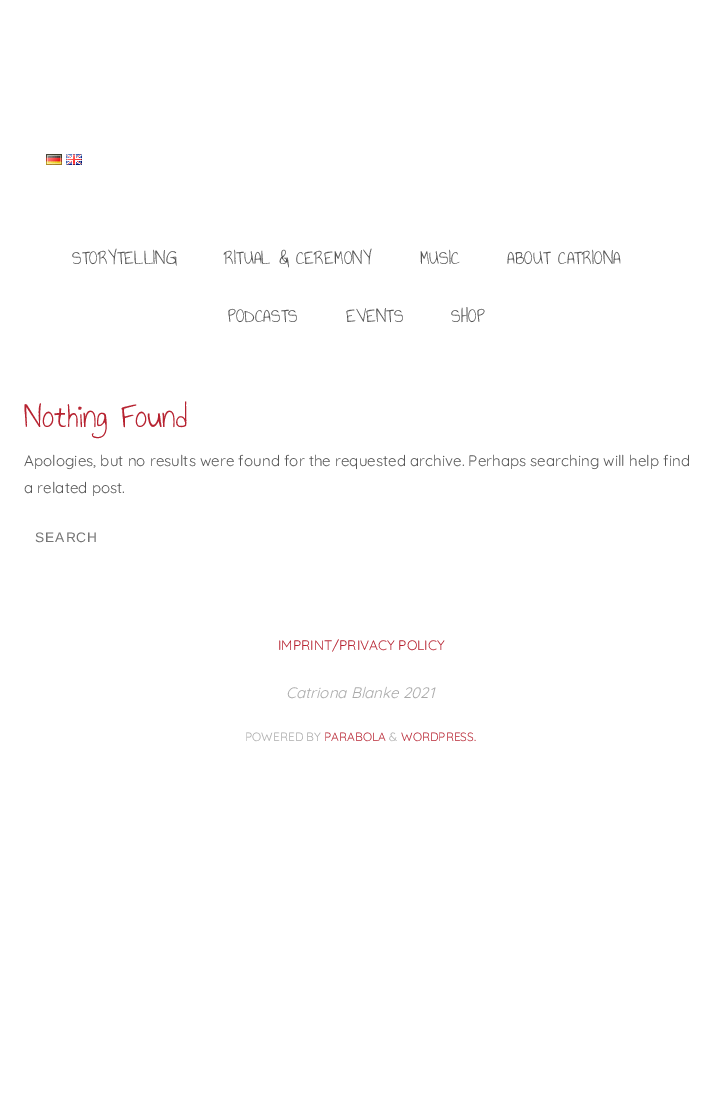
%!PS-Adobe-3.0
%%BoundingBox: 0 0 721 1103
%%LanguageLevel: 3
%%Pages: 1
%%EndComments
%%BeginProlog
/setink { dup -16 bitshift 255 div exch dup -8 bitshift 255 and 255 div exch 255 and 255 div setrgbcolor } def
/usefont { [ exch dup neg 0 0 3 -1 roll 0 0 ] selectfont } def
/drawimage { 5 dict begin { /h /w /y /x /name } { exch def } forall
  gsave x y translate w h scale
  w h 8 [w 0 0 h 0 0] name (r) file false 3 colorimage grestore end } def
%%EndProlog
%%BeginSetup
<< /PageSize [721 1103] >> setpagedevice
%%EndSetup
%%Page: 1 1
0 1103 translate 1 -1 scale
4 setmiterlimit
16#FFFFFF setink
0 0 721 1103 rectfill
(img1.raw) 46 154 16 11 drawimage
(img2.raw) 66 154 16 11 drawimage
/AnnieUseYourTelescope-Regular 20 usefont
16#565656 setink
[
    [(STORYTELLING) 72 264]
    [(RITUAL & CEREMONY) 224 264]
    [(MUSIC) 420 264]
    [(ABOUT CATRIONA) 507 264]
    [(PODCASTS) 228 322]
    [(EVENTS) 346 322]
    [(SHOP) 451 322]
] { aload pop moveto show } forall
/AnnieUseYourTelescope-Regular 34 usefont
16#B72331 setink
24 427 moveto (Nothing Found) show
/Quicksand-Light 15.2 usefont
16#565656 setink
24 466 moveto (Apologies, but no results were found for the requested archive. Perhaps searching will help find) show
24 493 moveto (a related post.) show
/LiberationSans-Regular 13.75 usefont
16#757575 setink
35 542 moveto 1 0 (SEARCH) ashow
/Quicksand-Light 13.75 usefont
16#B72331 setink
278 650 moveto (IMPRINT/PRIVACY POLICY) show
/Quicksand-LightItalic 15.2 usefont
16#AAAAAA setink
286 698 moveto (Catriona Blanke 2021) show
/Quicksand-Light 12 usefont
245 741 moveto (POWERED BY) show
16#B72331 setink
324 741 moveto (PARABOLA) show
16#AAAAAA setink
389 741 moveto (&) show
16#B72331 setink
401 741 moveto (WORDPRESS.) show
showpage
%%EOF
